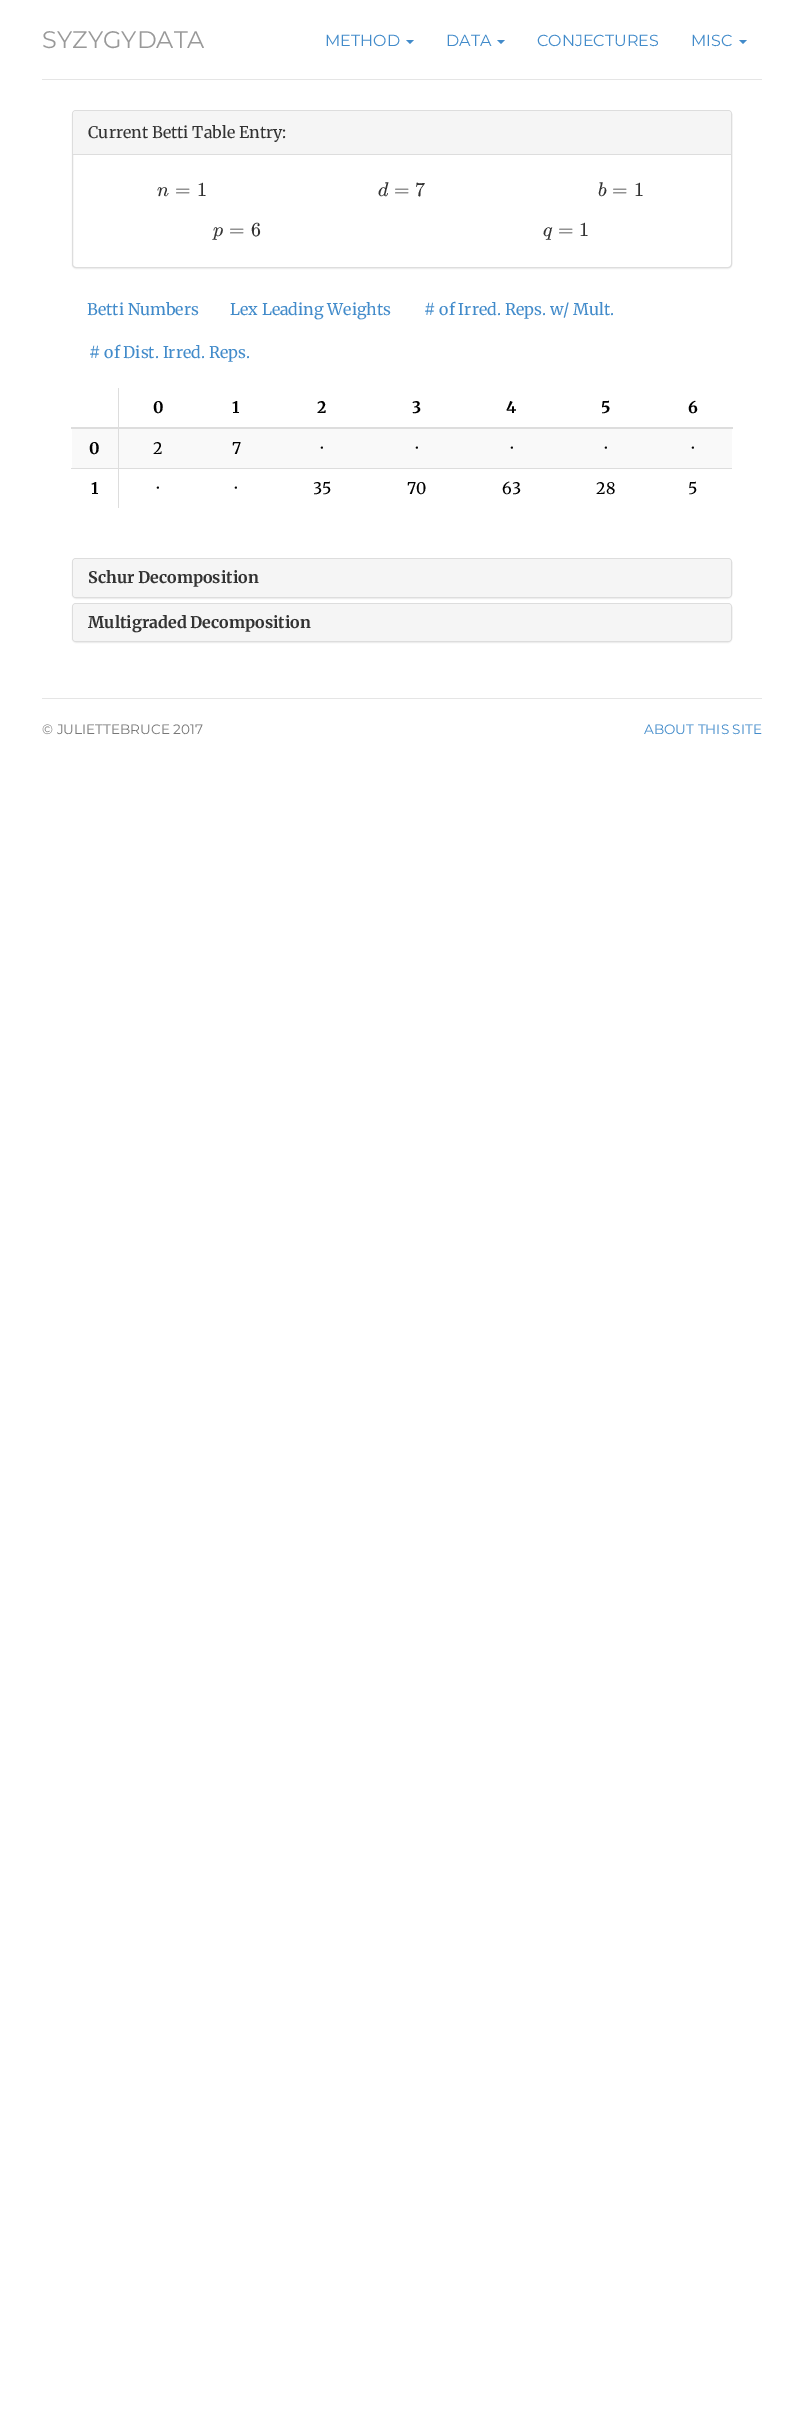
%!PS-Adobe-3.0
%%BoundingBox: 0 0 803 2414
%%LanguageLevel: 3
%%Pages: 1
%%EndComments
%%BeginProlog
/setink { dup -16 bitshift 255 div exch dup -8 bitshift 255 and 255 div exch 255 and 255 div setrgbcolor } def
/usefont { [ exch dup neg 0 0 3 -1 roll 0 0 ] selectfont } def
/setalpha { dup .setfillconstantalpha .setstrokeconstantalpha } def
/rrect { 5 dict begin { /r /h /w /y /x } { exch def } forall
  x r add y moveto x w add y 2 copy h add r arct x w add y h add x 1 index r arct
  x y h add x y r arct x y 2 copy exch w add exch r arct closepath end } def
/softshadow { 12 dict begin { /a /b /q /h /w /y /x } { exch def } forall gsave /was 0 def
  9 -2 -9 { dup b mul 4 div /e exch def 1 sub .425 mul 2.718 exch exp 1 add a .99 .min exch div /now exch def
    1 1 now sub 1 was sub div sub setalpha /was now def
    w h .min e 2 mul add 0 gt { x e sub y e sub w e 2 mul add h e 2 mul add
      q e add b .6 mul add w h .min 2 div e add .min 0 .max rrect fill } if } for grestore end } def
%%EndProlog
%%BeginSetup
<< /PageSize [803 2414] /PageUsesTransparency true >> setpagedevice
%%EndSetup
%%Page: 1 1
0 .pushpdf14devicefilter
0 2414 translate 1 -1 scale
4 setmiterlimit
16#FFFFFF setink
0 0 803 2414 rectfill
16#E5E5E5 setink
42 79 720 1 rectfill
/Montserrat-Thin 24 usefont
16#999999 setink
42 48 moveto (SYZYGYDATA) show
/Montserrat-Thin 16 usefont
16#428BCA setink
325 46 moveto (METHOD) show
406 40 moveto 414 40 lineto 410 44 lineto closepath fill
446 46 moveto (DATA) show
497 40 moveto 505 40 lineto 501 44 lineto closepath fill
537 46 moveto (CONJECTURES) show
691 46 moveto (MISC) show
739 40 moveto 747 40 lineto 743 44 lineto closepath fill
16#000000 setink
72 111 660 158 4 0.5 0.05 softshadow
16#FFFFFF setink
72.5 110.5 659 157 3.5 rrect gsave fill grestore
16#DDDDDD setink
stroke
16#F5F5F5 setink
76 111 moveto 728 111 lineto 729.5 111 731 112.5 731 114 curveto 731 155 lineto 73 155 lineto 73 114 lineto 73 112.5 74.5 111 76 111 curveto closepath fill
16#DDDDDD setink
73 154 658 1 rectfill
/Merriweather-Regular 16 usefont
16#333333 setink
88 138 moveto (Current Betti Table Entry:) show
/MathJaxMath-Italic 20 usefont
157 196 moveto (n) show
/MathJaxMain-Regular 20 usefont
175 196 moveto (=) show
197 196 moveto (1) show
/MathJaxMath-Italic 20 usefont
378 196 moveto (d) show
/MathJaxMain-Regular 20 usefont
394 196 moveto (=) show
415 196 moveto (7) show
/MathJaxMath-Italic 20 usefont
598 196 moveto (b) show
/MathJaxMain-Regular 20 usefont
612 196 moveto (=) show
634 196 moveto (1) show
/MathJaxMath-Italic 20 usefont
213 236 moveto (p) show
/MathJaxMain-Regular 20 usefont
229 236 moveto (=) show
251 236 moveto (6) show
/MathJaxMath-Italic 20 usefont
543 236 moveto (q) show
/MathJaxMain-Regular 20 usefont
558 236 moveto (=) show
579 236 moveto (1) show
/Merriweather-Regular 16 usefont
16#428BCA setink
[
    [(Betti Numbers) 87 315]
    [(Lex Leading Weights) 230 315]
    [(# of Irred. Reps. w/ Mult.) 424 315]
    [(# of Dist. Irred. Reps.) 89 358]
] { aload pop moveto show } forall
/Merriweather-Bold 16 usefont
16#000000 setink
[
    [(0) 153 413]
    [(1) 232 413]
    [(2) 317 413]
    [(3) 412 413]
    [(4) 506 413]
    [(5) 601 413]
] { aload pop moveto show } forall
[
    [71 468 661 1 16#DDDDDD]
    [118 388 1 120 16#DDDDDD]
    [71 427 662 2 16#DDDDDD]
] { aload pop setink rectfill } forall
16#000000 setink
688 413 moveto (6) show
16#F9F9F9 setink
72 429 46 39 rectfill
16#000000 setink
89 454 moveto (0) show
16#F9F9F9 setink
119 429 613 39 rectfill
/Merriweather-Regular 16 usefont
16#000000 setink
[
    [(2) 153 454]
    [(7) 232 454]
    [(·) 321 454]
    [(·) 416 454]
    [(·) 511 454]
    [(·) 605 454]
    [(·) 692 454]
] { aload pop moveto show } forall
/Merriweather-Bold 16 usefont
91 494 moveto (1) show
/Merriweather-Regular 16 usefont
[
    [(·) 157 494]
    [(·) 235 494]
    [(35) 313 494]
    [(70) 407 494]
    [(63) 502 494]
    [(28) 596 494]
    [(5) 688 494]
] { aload pop moveto show } forall
72 559 660 40 4 0.5 0.05 softshadow
16#DDDDDD setink
72.5 558.5 659 39 3.5 rrect stroke
16#F5F5F5 setink
73 559 658 38 3 rrect fill
/Merriweather-Bold 16 usefont
16#333333 setink
88 583 moveto (Schur Decomposition) show
16#000000 setink
72 604 660 39 4 0.5 0.05 softshadow
16#DDDDDD setink
72.5 603.5 659 38 3.5 rrect stroke
16#F5F5F5 setink
73 604 658 37 3 rrect fill
16#333333 setink
88 628 moveto (Multigraded Decomposition) show
16#E5E5E5 setink
42 698 720 1 rectfill
/Montserrat-Thin 13.6 usefont
16#777777 setink
42 734 moveto (© JULIETTEBRUCE 2017) show
16#428BCA setink
644 734 moveto (ABOUT THIS SITE) show
.poppdf14devicefilter showpage
%%EOF
